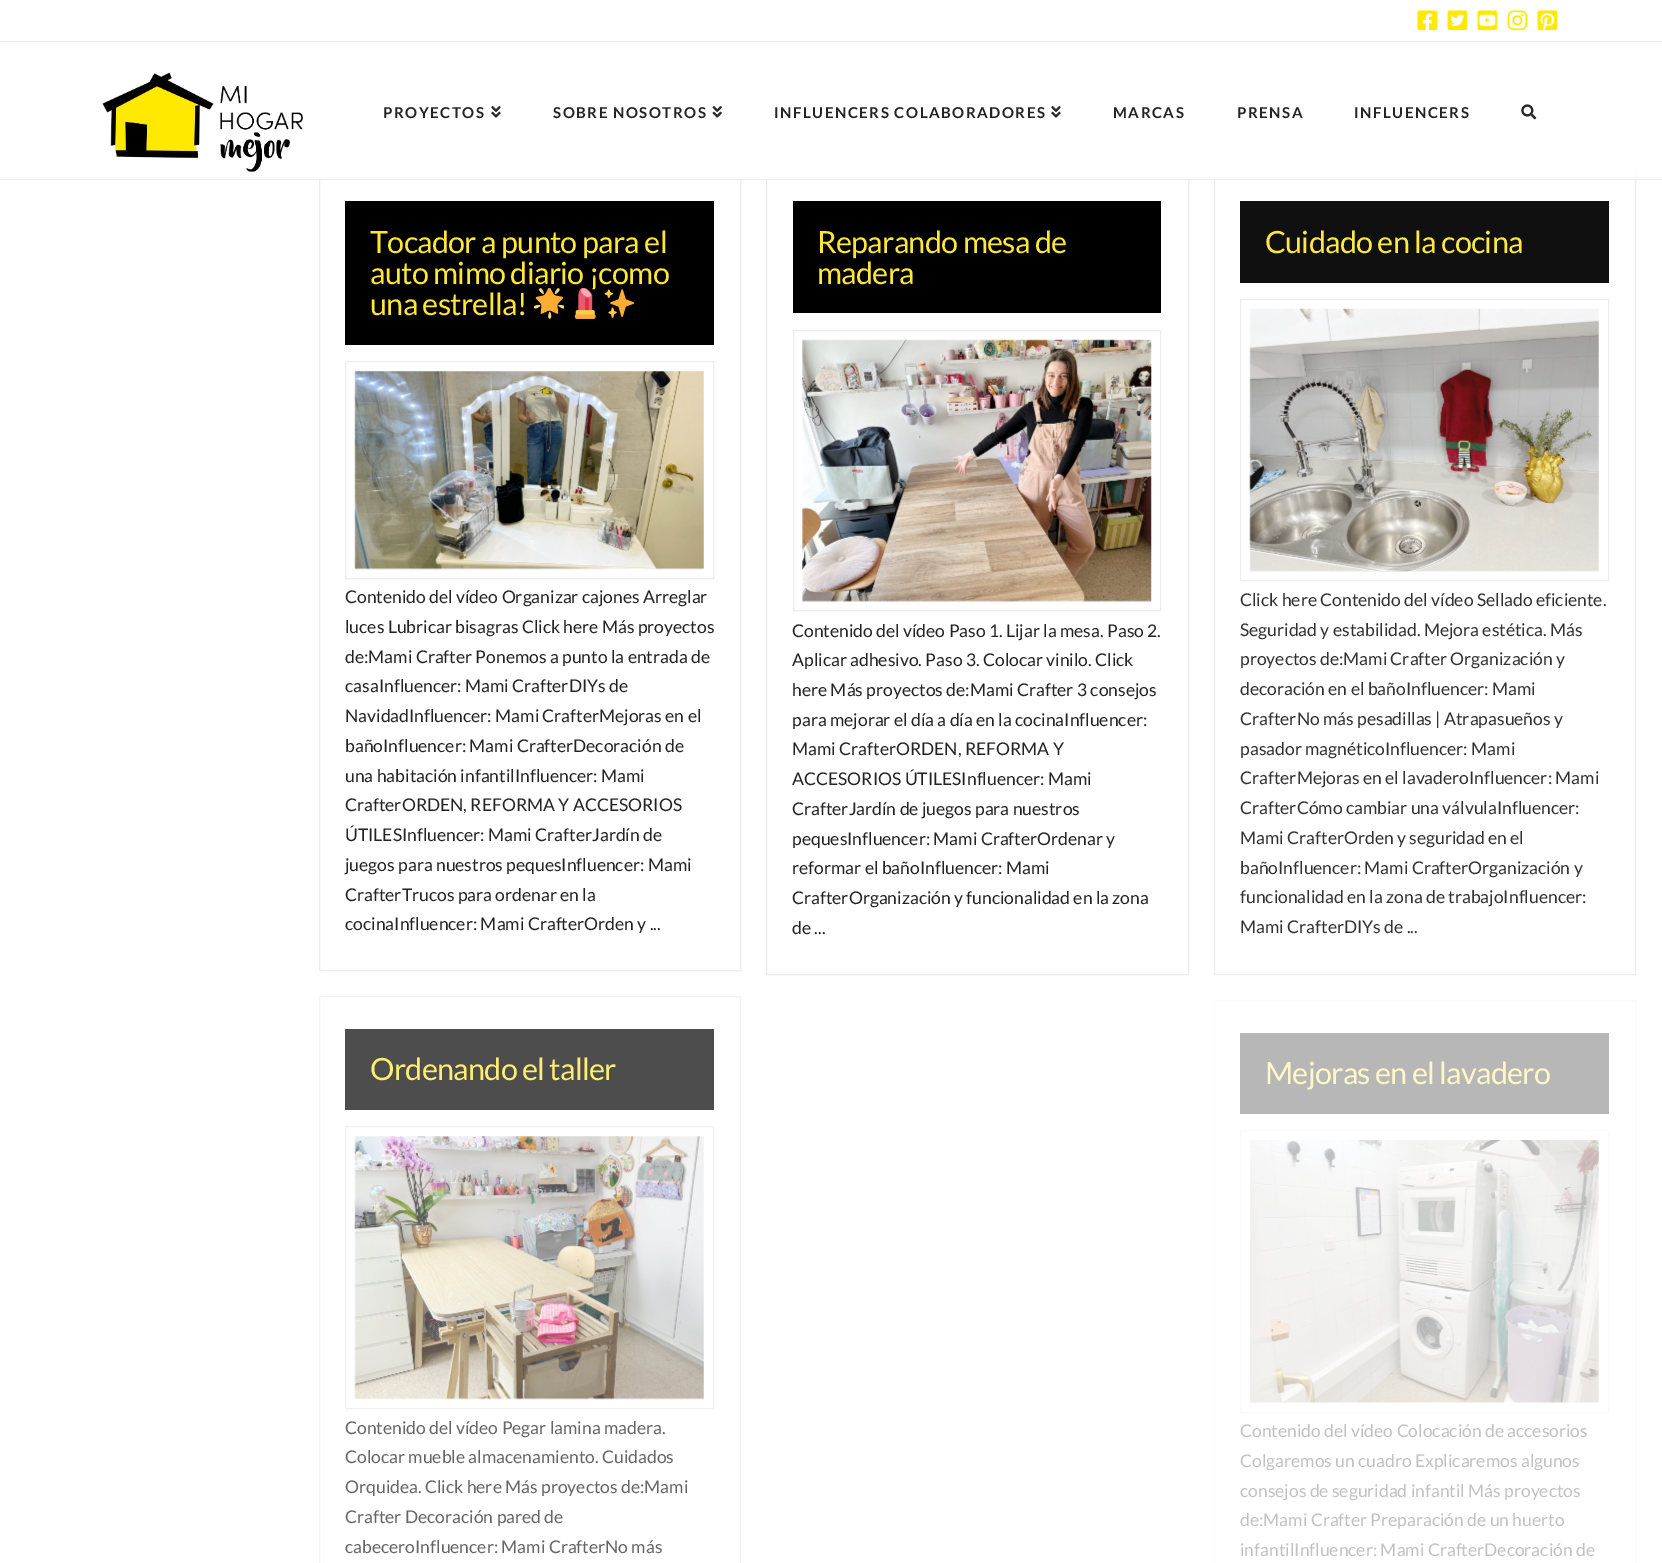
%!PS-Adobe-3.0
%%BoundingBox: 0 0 1662 1563
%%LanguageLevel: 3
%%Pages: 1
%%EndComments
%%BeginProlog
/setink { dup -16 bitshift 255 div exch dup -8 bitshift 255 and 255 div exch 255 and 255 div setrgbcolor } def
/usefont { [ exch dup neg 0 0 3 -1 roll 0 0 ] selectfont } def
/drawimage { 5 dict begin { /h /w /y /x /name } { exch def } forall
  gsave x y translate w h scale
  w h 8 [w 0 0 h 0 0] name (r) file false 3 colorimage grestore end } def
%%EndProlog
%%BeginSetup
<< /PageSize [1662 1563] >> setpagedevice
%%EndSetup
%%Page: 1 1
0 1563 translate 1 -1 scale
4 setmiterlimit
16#FFFFFF setink
0 0 1662 1563 rectfill
16#ECECEC setink
0 41 1662 1 rectfill
(img1.raw) 1417 10 21 21 drawimage
(img2.raw) 1447 10 21 21 drawimage
(img3.raw) 1477 10 21 21 drawimage
(img4.raw) 1507 10 21 21 drawimage
(img5.raw) 1537 10 21 21 drawimage
319.5 169.5 421 801 rectstroke
766.5 169.5 422 805 rectstroke
16#EDEDED setink
1214.5 169.5 421 805 rectstroke
16#FFFFFF setink
319 169 1317 10 rectfill
16#ECECEC setink
0 179 1662 1 rectfill
(img6.raw) 102 72 201 100 drawimage
/Lato-Bold 15 usefont
16#232323 setink
383 118 moveto 1.5 0 (PROYECTOS) ashow
(img7.raw) 491 106 10 12 drawimage
553 118 moveto 1.5 0 (SOBRE NOSOTROS) ashow
(img8.raw) 712 106 10 12 drawimage
774 118 moveto 1.5 0 (INFLUENCERS COLABORADORES) ashow
(img7.raw) 1051 106 10 12 drawimage
1113 118 moveto 1.5 0 (MARCAS) ashow
1237 118 moveto 1.5 0 (PRENSA) ashow
1354 118 moveto 1.5 0 (INFLUENCERS) ashow
(img9.raw) 1521 104 16 16 drawimage
16#000000 setink
345 201 369 144 rectfill
/Lato-Regular 30.6 usefont
16#FFE733 setink
370 253 moveto -0.75 0 (Tocador a punto para el) ashow
370 284 moveto -0.75 0 (auto mimo diario ¡como) ashow
370 315 moveto -0.75 0 (una estrella!) ashow
(img10.raw) 534 288 30 31 drawimage
(img11.raw) 574 288 22 31 drawimage
(img12.raw) 604 289 30 29 drawimage
16#ECECEC setink
345.5 361.5 368 217 rectstroke
(img13.raw) 354 371 350 199 drawimage
/Lato-Regular 17.5 usefont
16#232323 setink
[
    [(Contenido del vídeo Organizar cajones Arreglar) 345 603]
    [(luces Lubricar bisagras Click here Más proyectos) 345 633]
    [(de:Mami Crafter Ponemos a punto la entrada de) 345 663]
    [(casaInfluencer: Mami CrafterDIYs de) 345 692]
    [(NavidadInfluencer: Mami CrafterMejoras en el) 345 722]
    [(bañoInfluencer: Mami CrafterDecoración de) 345 752]
    [(una habitación infantilInfluencer: Mami) 345 782]
    [(CrafterORDEN, REFORMA Y ACCESORIOS) 345 811]
    [(ÚTILESInfluencer: Mami CrafterJardín de) 345 841]
    [(juegos para nuestros pequesInfluencer: Mami) 345 871]
    [(CrafterTrucos para ordenar en la) 345 901]
    [(cocinaInfluencer: Mami CrafterOrden y ...) 345 930]
] { aload pop moveto show } forall
16#000000 setink
793 201 368 112 rectfill
/Lato-Regular 30.6 usefont
16#FFE733 setink
817 253 moveto -0.75 0 (Reparando mesa de) ashow
817 284 moveto -0.75 0 (madera) ashow
16#ECECEC setink
793.5 330.5 367 280 rectstroke
(img14.raw) 802 339 350 263 drawimage
/Lato-Regular 17.5 usefont
16#232323 setink
[
    [(Contenido del vídeo Paso 1. Lijar la mesa. Paso 2.) 792 637]
    [(Aplicar adhesivo. Paso 3. Colocar vinilo. Click) 792 666]
    [(here Más proyectos de:Mami Crafter 3 consejos) 792 696]
    [(para mejorar el día a día en la cocinaInfluencer:) 792 726]
    [(Mami CrafterORDEN, REFORMA Y) 792 755]
    [(ACCESORIOS ÚTILESInfluencer: Mami) 792 785]
    [(CrafterJardín de juegos para nuestros) 792 815]
    [(pequesInfluencer: Mami CrafterOrdenar y) 792 845]
    [(reformar el bañoInfluencer: Mami) 792 874]
    [(CrafterOrganización y funcionalidad en la zona) 792 904]
    [(de ...) 792 934]
] { aload pop moveto show } forall
16#101010 setink
1240 201 369 82 rectfill
/Lato-Regular 30.6 usefont
16#FFE940 setink
1265 253 moveto -0.75 0 (Cuidado en la cocina) ashow
16#EDEDED setink
1240.5 299.5 368 281 rectstroke
(img15.raw) 1249 308 350 264 drawimage
/Lato-Regular 17.5 usefont
16#313131 setink
[
    [(Click here Contenido del vídeo Sellado eficiente.) 1240 606]
    [(Seguridad y estabilidad. Mejora estética. Más) 1240 636]
    [(proyectos de:Mami Crafter Organización y) 1240 665]
    [(decoración en el bañoInfluencer: Mami) 1240 695]
    [(CrafterNo más pesadillas | Atrapasueños y) 1240 725]
    [(pasador magnéticoInfluencer: Mami) 1240 755]
    [(CrafterMejoras en el lavaderoInfluencer: Mami) 1240 784]
    [(CrafterCómo cambiar una válvulaInfluencer:) 1240 814]
    [(Mami CrafterOrden y seguridad en el) 1240 844]
    [(bañoInfluencer: Mami CrafterOrganización y) 1240 874]
    [(funcionalidad en la zona de trabajoInfluencer:) 1240 903]
    [(Mami CrafterDIYs de ...) 1240 933]
] { aload pop moveto show } forall
16#F2F2F2 setink
319.5 996.5 421 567 rectstroke
16#4D4D4D setink
345 1029 369 81 rectfill
/Lato-Regular 30.6 usefont
16#FFEE70 setink
370 1080 moveto -0.75 0 (Ordenando el taller) ashow
16#F2F2F2 setink
345.5 1126.5 368 282 rectstroke
(img16.raw) 354 1136 350 264 drawimage
/Lato-Regular 17.5 usefont
16#656565 setink
[
    [(Contenido del vídeo Pegar lamina madera.) 345 1434]
    [(Colocar mueble almacenamiento. Cuidados) 345 1463]
    [(Orquidea. Click here Más proyectos de:Mami) 345 1493]
    [(Crafter Decoración pared de) 345 1523]
    [(cabeceroInfluencer: Mami CrafterNo más) 345 1553]
] { aload pop moveto show } forall
16#FAFAFA setink
1214.5 1000.5 421 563 rectstroke
16#B7B7B7 setink
1240 1033 369 81 rectfill
/Lato-Regular 30.6 usefont
16#FFF8C6 setink
1265 1084 moveto -0.75 0 (Mejoras en el lavadero) ashow
16#FAFAFA setink
1240.5 1130.5 368 282 rectstroke
(img17.raw) 1250 1140 349 263 drawimage
/Lato-Regular 17.5 usefont
16#C1C1C1 setink
[
    [(Contenido del vídeo Colocación de accesorios) 1240 1437]
    [(Colgaremos un cuadro Explicaremos algunos) 1240 1467]
    [(consejos de seguridad infantil Más proyectos) 1240 1497]
    [(de:Mami Crafter Preparación de un huerto) 1240 1526]
    [(infantilInfluencer: Mami CrafterDecoración de) 1240 1556]
] { aload pop moveto show } forall
showpage
%%EOF
